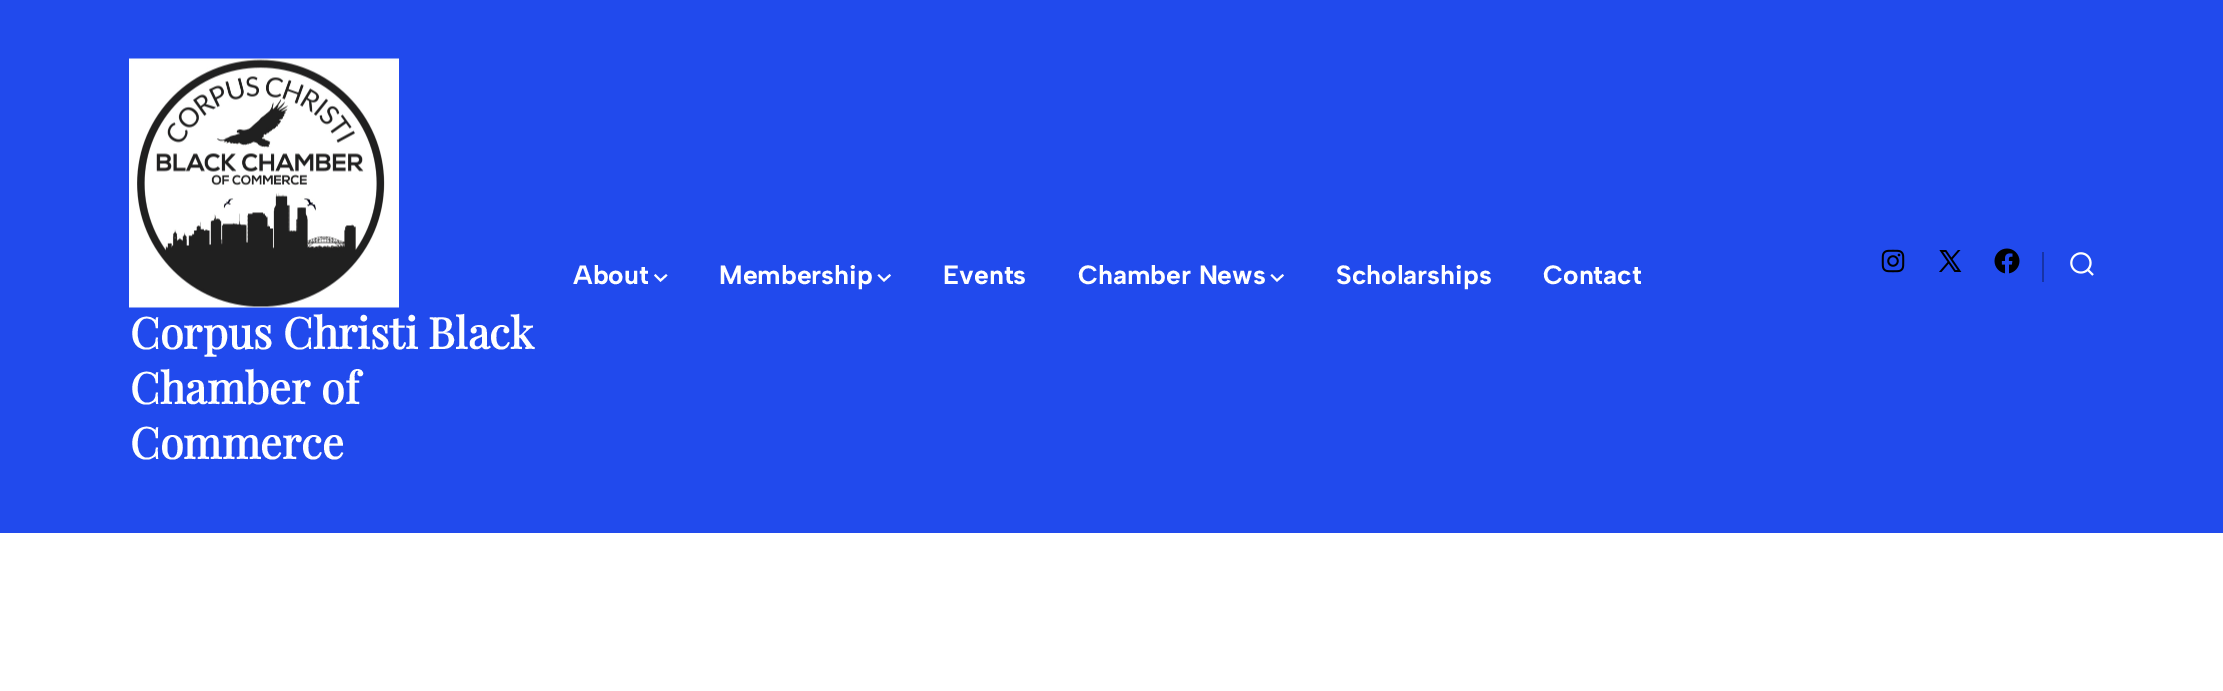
%!PS-Adobe-3.0
%%BoundingBox: 0 0 2223 691
%%LanguageLevel: 3
%%Pages: 1
%%EndComments
%%BeginProlog
/setink { dup -16 bitshift 255 div exch dup -8 bitshift 255 and 255 div exch 255 and 255 div setrgbcolor } def
/usefont { [ exch dup neg 0 0 3 -1 roll 0 0 ] selectfont } def
/drawimage { 5 dict begin { /h /w /y /x /name } { exch def } forall
  gsave x y translate w h scale
  w h 8 [w 0 0 h 0 0] name (r) file false 3 colorimage grestore end } def
%%EndProlog
%%BeginSetup
<< /PageSize [2223 691] >> setpagedevice
%%EndSetup
%%Page: 1 1
0 691 translate 1 -1 scale
4 setmiterlimit
16#FFFFFF setink
0 0 2223 691 rectfill
16#214AED setink
0 0 2223 533 rectfill
/AlbertSans-Bold 26.5 usefont
16#FFFFFF setink
573 284 moveto (About) show
2 setlinewidth
2 setlinecap
655.5 275.5 moveto 660.5 280.5 lineto 666 275.5 lineto stroke
719 284 moveto (Membership) show
879 275.5 moveto 884 280.5 lineto 889.5 275.5 lineto stroke
943 284 moveto (Events) show
1078 284 moveto (Chamber News) show
1272 275.5 moveto 1277 280.5 lineto 1282.5 275.5 lineto stroke
1336 284 moveto (Scholarships) show
1543 284 moveto (Contact) show
(img1.raw) 129 58 270 250 drawimage
/PlayfairDisplay-Bold 43.25 usefont
[
    [(Corpus Christi Black) 130 349]
    [(Chamber of) 130 404]
    [(Commerce) 130 459]
] { aload pop moveto show } forall
(img2.raw) 1881 249 24 24 drawimage
(img3.raw) 1939 250 23 22 drawimage
(img4.raw) 1994 248 26 26 drawimage
16#1734A6 setink
2042 252 2 30 rectfill
(img5.raw) 2070 252 24 24 drawimage
showpage
%%EOF
